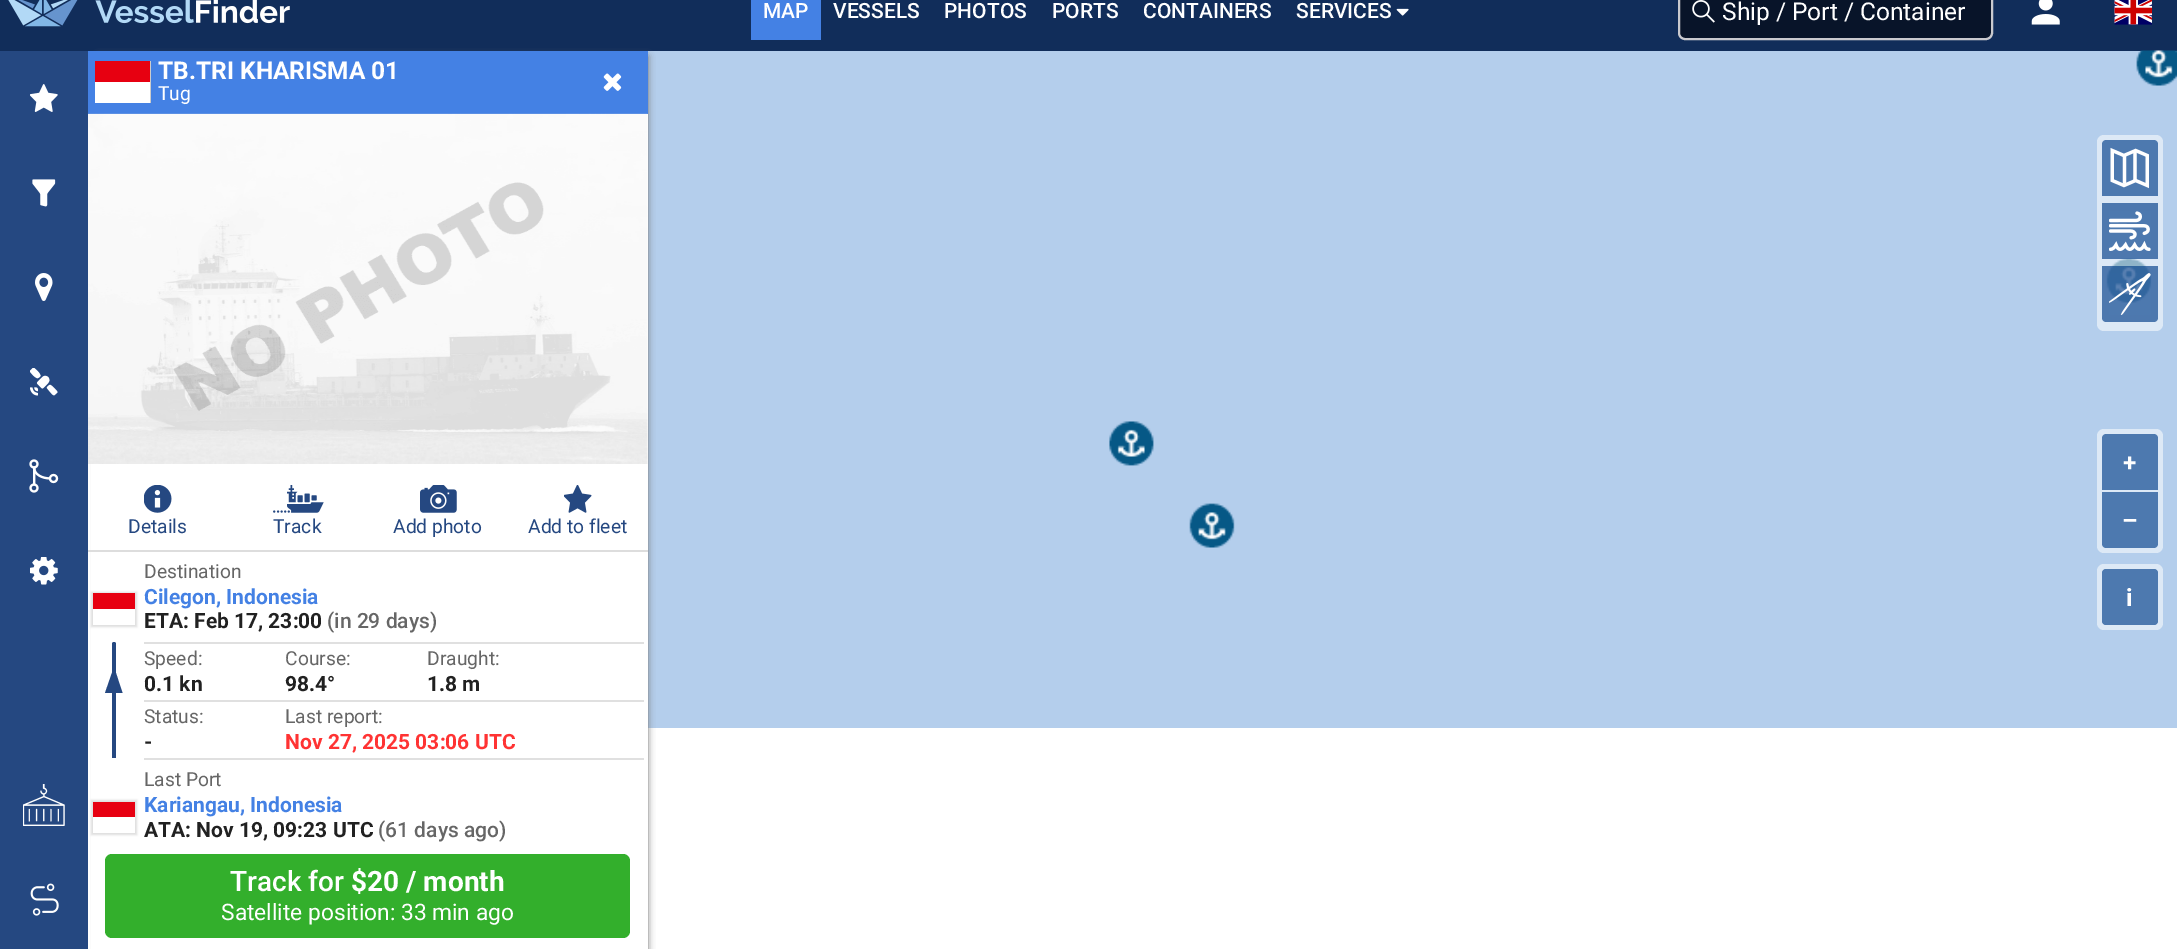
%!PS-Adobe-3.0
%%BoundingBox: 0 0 2177 949
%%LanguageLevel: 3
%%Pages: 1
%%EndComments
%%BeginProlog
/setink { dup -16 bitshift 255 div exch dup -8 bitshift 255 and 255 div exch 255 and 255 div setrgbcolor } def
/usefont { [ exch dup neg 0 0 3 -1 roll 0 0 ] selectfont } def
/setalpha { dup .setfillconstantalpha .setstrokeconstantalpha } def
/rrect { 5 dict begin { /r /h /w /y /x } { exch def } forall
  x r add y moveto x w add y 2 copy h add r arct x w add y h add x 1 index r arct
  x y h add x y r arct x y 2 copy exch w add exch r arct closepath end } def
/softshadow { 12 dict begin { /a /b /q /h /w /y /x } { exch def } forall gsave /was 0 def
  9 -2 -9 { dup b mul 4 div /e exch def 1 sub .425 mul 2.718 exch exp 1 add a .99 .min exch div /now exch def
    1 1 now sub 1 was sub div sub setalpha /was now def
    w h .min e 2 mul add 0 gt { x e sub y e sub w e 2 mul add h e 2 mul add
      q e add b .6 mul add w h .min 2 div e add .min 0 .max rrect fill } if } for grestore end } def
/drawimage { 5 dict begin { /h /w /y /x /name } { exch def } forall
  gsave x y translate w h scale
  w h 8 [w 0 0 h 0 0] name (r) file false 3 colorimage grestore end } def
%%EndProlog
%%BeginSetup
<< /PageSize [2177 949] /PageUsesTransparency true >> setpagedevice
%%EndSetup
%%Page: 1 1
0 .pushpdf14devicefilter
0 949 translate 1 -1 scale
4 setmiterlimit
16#FFFFFF setink
0 0 2177 949 rectfill
16#112D5A setink
0 0 2177 51 rectfill
(img1.raw) 8 0 70 27 drawimage
(img2.raw) 95 0 195 24 drawimage
16#4481E4 setink
751 0 70 40 rectfill
/Roboto-Medium 21 usefont
16#FFFFFF setink
[
    [(MAP) 763 18]
    [(VESSELS) 833 18]
    [(PHOTOS) 944 18]
    [(PORTS) 1052 18]
    [(CONTAINERS) 1143 18]
    [(SERVICES) 1296 18]
] { aload pop moveto show } forall
(img3.raw) 1396 8 13 8 drawimage
16#081429 setink
1679 -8 313 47 6 rrect gsave fill grestore
16#C9C9CE setink
2 setlinewidth
stroke
(img4.raw) 1692 0 23 23 drawimage
/Roboto-Regular 24.5 usefont
16#FFFFFF setink
1722 20 moveto (Ship / Port / Container) show
(img5.raw) 2031 0 29 25 drawimage
(img6.raw) 2114 0 38 25 drawimage
16#254881 setink
0 51 88 898 rectfill
(img7.raw) 30 84 28 28 drawimage
(img8.raw) 32 179 24 28 drawimage
(img9.raw) 35 273 18 28 drawimage
(img10.raw) 30 368 28 28 drawimage
(img11.raw) 29 459 30 34 drawimage
(img12.raw) 30 557 28 28 drawimage
(img13.raw) 23 784 42 42 drawimage
(img14.raw) 30 883 29 33 drawimage
16#B4CEEC setink
648 51 1529 677 rectfill
16#777777 setink
98 56 550 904 0 3.5 1 softshadow
[
    [91 114 557 835 16#FFFFFF]
    [88 51 560 63 16#4481E4]
    [150 61 1 42 16#CCCCCC]
    [95 61 55 21 16#E70011]
    [95 82 55 21 16#FFFFFF]
] { aload pop setink rectfill } forall
/Roboto-Bold 24.5 usefont
158 79 moveto (TB.TRI KHARISMA 01) show
/Roboto-Regular 19.25 usefont
158 100 moveto (Tug) show
(img15.raw) 603 73 19 18 drawimage
(img16.raw) 88 113 560 351 drawimage
16#DDDDDD setink
88 550 560 2 rectfill
(img17.raw) 144 485 28 28 drawimage
16#254881 setink
128 533 moveto (Details) show
(img18.raw) 273 485 51 28 drawimage
273 533 moveto (Track) show
(img19.raw) 420 485 37 28 drawimage
393 533 moveto (Add photo) show
(img20.raw) 564 485 28 28 drawimage
528 533 moveto (Add to fleet) show
16#DEDEDE setink
91 592 46 35 0 1 1 softshadow
16#E70011 setink
93 593 42 16 rectfill
16#FFFFFF setink
93 609 42 16 rectfill
16#666666 setink
144 578 moveto (Destination) show
/Roboto-Bold 21 usefont
16#4481E4 setink
144 604 moveto (Cilegon, Indonesia) show
16#212121 setink
144 628 moveto (ETA: Feb 17, 23:00) show
/Roboto-Medium 21 usefont
16#666666 setink
327 628 moveto (\(in 29 days\)) show
16#254881 setink
112 642 4 116 2 rrect fill
122.5 693 moveto 105 693 lineto 114 667 lineto closepath fill
[
    [112 756 4 2 16#254881]
    [144 642 500 2 16#E0E0E0]
    [144 700 500 2 16#E0E0E0]
] { aload pop setink rectfill } forall
/Roboto-Regular 19.25 usefont
16#666666 setink
144 665 moveto (Speed:) show
/Roboto-Bold 21 usefont
16#212121 setink
144 691 moveto (0.1 kn) show
/Roboto-Regular 19.25 usefont
16#666666 setink
285 665 moveto (Course:) show
/Roboto-Bold 21 usefont
16#212121 setink
285 691 moveto (98.4°) show
/Roboto-Regular 19.25 usefont
16#666666 setink
427 665 moveto (Draught:) show
/Roboto-Bold 21 usefont
16#212121 setink
427 691 moveto (1.8 m) show
16#E0E0E0 setink
144 758 500 2 rectfill
/Roboto-Regular 19.25 usefont
16#666666 setink
144 723 moveto (Status:) show
/Roboto-Bold 21 usefont
16#212121 setink
144 749 moveto (-) show
/Roboto-Regular 19.25 usefont
16#666666 setink
285 723 moveto (Last report:) show
/Roboto-Bold 21 usefont
16#FF3333 setink
285 749 moveto (Nov 27, 2025 03:06 UTC) show
16#DEDEDE setink
91 800 46 35 0 1 1 softshadow
16#E70011 setink
93 802 42 15 rectfill
16#FFFFFF setink
93 817 42 16 rectfill
/Roboto-Regular 19.25 usefont
16#666666 setink
144 786 moveto (Last Port) show
/Roboto-Bold 21 usefont
16#4481E4 setink
144 812 moveto (Kariangau, Indonesia) show
16#212121 setink
144 837 moveto (ATA: Nov 19, 09:23 UTC) show
/Roboto-Medium 21 usefont
16#666666 setink
378 837 moveto (\(61 days ago\)) show
16#33AF2C setink
105 854 525 84 7 rrect fill
/Roboto-Medium 28 usefont
16#FFFFFF setink
230 891 moveto (Track for) show
/Roboto-Bold 28 usefont
351 891 moveto ($20 / month) show
/Roboto-Regular 22.75 usefont
221 920 moveto (Satellite position: 33 min ago) show
(img24.raw) 1109 50 1068 498 drawimage
0.55 setalpha
2097 135 66 196 7 rrect fill
1 setalpha
16#4D79AF setink
2106 140 moveto 2154 140 lineto 2156 140 2158 142 2158 144 curveto 2158 196 lineto 2102 196 lineto 2102 144 lineto 2102 142 2104 140 2106 140 curveto closepath fill
(img21.raw) 2110 147 39 42 drawimage
0.65 setalpha
16#003C88 setink
2102 203 56 56 rectfill
1 setalpha
(img22.raw) 2109 211 42 40 drawimage
0.65 setalpha
2102 266 moveto 2158 266 lineto 2158 318 lineto 2158 320 2156 322 2154 322 curveto 2106 322 lineto 2104 322 2102 320 2102 318 curveto closepath fill
1 setalpha
(img23.raw) 2109 273 42 42 drawimage
16#DDE9F6 setink
2097 429 66 124 7 rrect fill
16#4D79AF setink
2106 434 moveto 2154 434 lineto 2156 434 2158 436 2158 438 curveto 2158 490 lineto 2102 490 lineto 2102 438 lineto 2102 436 2104 434 2106 434 curveto closepath fill
/Roboto-Bold 24.5 usefont
16#FFFFFF setink
2123 471 moveto (+) show
16#4D79AF setink
2102 492 moveto 2158 492 lineto 2158 544 lineto 2158 546 2156 548 2154 548 curveto 2106 548 lineto 2104 548 2102 546 2102 544 curveto closepath fill
16#FFFFFF setink
2122 529 moveto (–) show
16#DDE9F6 setink
2097 564 66 66 7 rrect fill
16#4D79AF setink
2102 569 56 56 4 rrect fill
16#FFFFFF setink
2126 606 moveto (i) show
.poppdf14devicefilter showpage
%%EOF
